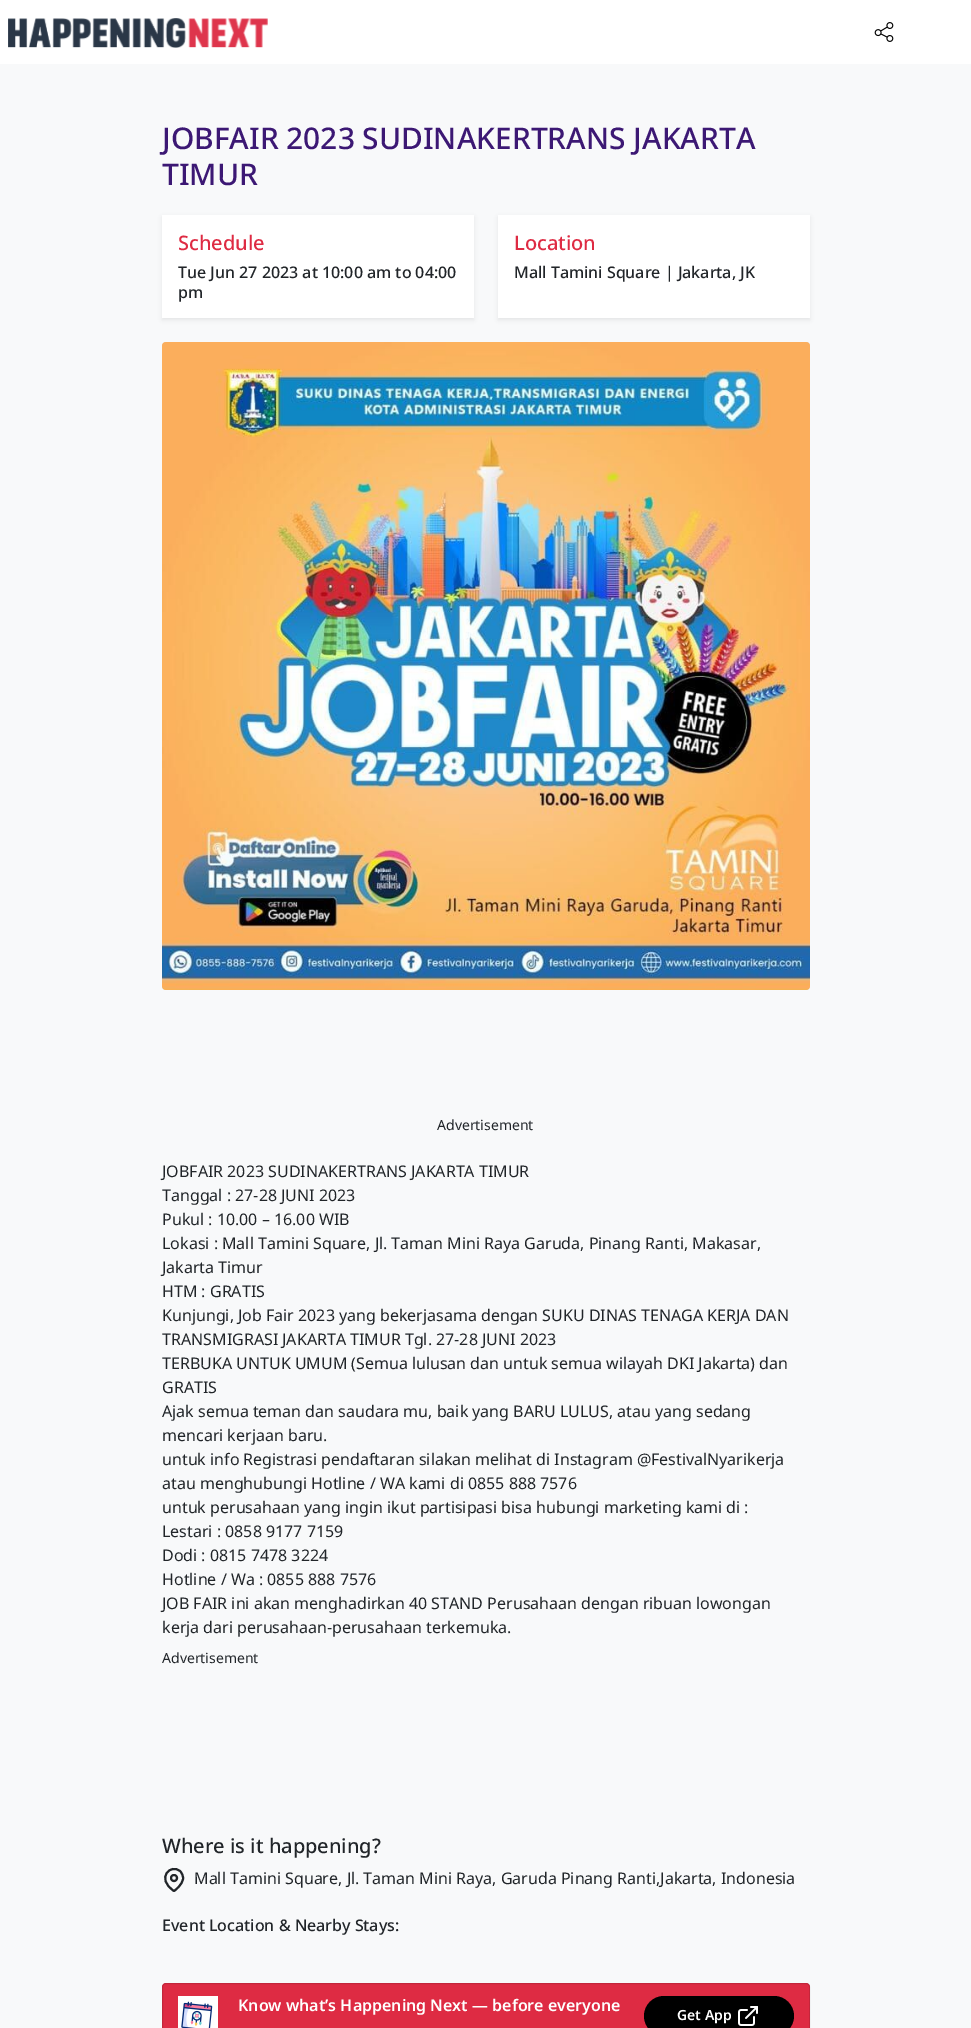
%!PS-Adobe-3.0
%%BoundingBox: 0 0 971 2028
%%LanguageLevel: 3
%%Pages: 1
%%EndComments
%%BeginProlog
/setink { dup -16 bitshift 255 div exch dup -8 bitshift 255 and 255 div exch 255 and 255 div setrgbcolor } def
/usefont { [ exch dup neg 0 0 3 -1 roll 0 0 ] selectfont } def
/setalpha { dup .setfillconstantalpha .setstrokeconstantalpha } def
/disc { newpath 0 360 arc closepath } def
/rrect { 5 dict begin { /r /h /w /y /x } { exch def } forall
  x r add y moveto x w add y 2 copy h add r arct x w add y h add x 1 index r arct
  x y h add x y r arct x y 2 copy exch w add exch r arct closepath end } def
/softshadow { 12 dict begin { /a /b /q /h /w /y /x } { exch def } forall gsave /was 0 def
  9 -2 -9 { dup b mul 4 div /e exch def 1 sub .425 mul 2.718 exch exp 1 add a .99 .min exch div /now exch def
    1 1 now sub 1 was sub div sub setalpha /was now def
    w h .min e 2 mul add 0 gt { x e sub y e sub w e 2 mul add h e 2 mul add
      q e add b .6 mul add w h .min 2 div e add .min 0 .max rrect fill } if } for grestore end } def
/drawimage { 5 dict begin { /h /w /y /x /name } { exch def } forall
  gsave x y translate w h scale
  w h 8 [w 0 0 h 0 0] name (r) file false 3 colorimage grestore end } def
%%EndProlog
%%BeginSetup
<< /PageSize [971 2028] /PageUsesTransparency true >> setpagedevice
%%EndSetup
%%Page: 1 1
0 .pushpdf14devicefilter
0 2028 translate 1 -1 scale
4 setmiterlimit
16#F8F9FA setink
0 0 971 2028 rectfill
16#FFFFFF setink
0 0 971 64 rectfill
(img1.raw) 8 18 260 30 drawimage
(img2.raw) 874 22 20 20 drawimage
/NotoSans-Medium 29.9 usefont
16#3C1874 setink
162 149 moveto (JOBFAIR 2023 SUDINAKERTRANS JAKARTA) show
162 185 moveto (TIMUR) show
16#000000 setink
162 217 312 103 0 2 0.07 softshadow
16#FFFFFF setink
162 215 312 103 rectfill
/NotoSans-Medium 20 usefont
16#DE2B43 setink
178 250 moveto (Schedule) show
/NotoSans-Medium 16 usefont
16#212529 setink
178 278 moveto (Tue Jun 27 2023 at 10:00 am to 04:00) show
178 298 moveto (pm) show
16#000000 setink
498 217 312 103 0 2 0.07 softshadow
16#FFFFFF setink
498 215 312 103 rectfill
/NotoSans-Medium 20 usefont
16#DE2B43 setink
514 250 moveto (Location) show
/NotoSans-Medium 16 usefont
16#212529 setink
514 278 moveto (Mall Tamini Square | Jakarta, JK) show
(img3.raw) 162 342 648 648 drawimage
/NotoSans-Regular 14 usefont
437 1130 moveto (Advertisement) show
/NotoSans-Regular 16 usefont
[
    [(JOBFAIR 2023 SUDINAKERTRANS JAKARTA TIMUR) 162 1177]
    [(Tanggal : 27-28 JUNI 2023) 162 1201]
    [(Pukul : 10.00 – 16.00 WIB) 162 1225]
    [(Lokasi : Mall Tamini Square, Jl. Taman Mini Raya Garuda, Pinang Ranti, Makasar,) 162 1249]
    [(Jakarta Timur) 162 1273]
    [(HTM : GRATIS) 162 1297]
    [(Kunjungi, Job Fair 2023 yang bekerjasama dengan SUKU DINAS TENAGA KERJA DAN) 162 1321]
    [(TRANSMIGRASI JAKARTA TIMUR Tgl. 27-28 JUNI 2023) 162 1345]
    [(TERBUKA UNTUK UMUM \(Semua lulusan dan untuk semua wilayah DKI Jakarta\) dan) 162 1369]
    [(GRATIS) 162 1393]
    [(Ajak semua teman dan saudara mu, baik yang BARU LULUS, atau yang sedang) 162 1417]
    [(mencari kerjaan baru.) 162 1441]
    [(untuk info Registrasi pendaftaran silakan melihat di Instagram @FestivalNyarikerja) 162 1465]
    [(atau menghubungi Hotline / WA kami di 0855 888 7576) 162 1489]
    [(untuk perusahaan yang ingin ikut partisipasi bisa hubungi marketing kami di :) 162 1513]
    [(Lestari : 0858 9177 7159) 162 1537]
    [(Dodi : 0815 7478 3224) 162 1561]
    [(Hotline / Wa : 0855 888 7576) 162 1585]
    [(JOB FAIR ini akan menghadirkan 40 STAND Perusahaan dengan ribuan lowongan) 162 1609]
    [(kerja dari perusahaan-perusahaan terkemuka.) 162 1633]
] { aload pop moveto show } forall
/NotoSans-Regular 14 usefont
162 1663 moveto (Advertisement) show
/NotoSans-Medium 20 usefont
162 1853 moveto (Where is it happening?) show
2 setlinewidth
1 setlinecap
1 setlinejoin
183 1878 moveto 183 1885 174 1891 174 1891 curveto 155 1878.5 171 1862.5 180.5 1871.5 curveto 182 1873.5 183 1875.5 183 1878 curveto closepath stroke
/NotoSans-Regular 16 usefont
194 1884 moveto (Mall Tamini Square, Jl. Taman Mini Raya, Garuda Pinang Ranti,Jakarta, Indonesia) show
0 setlinecap
0 setlinejoin
174 1878 3 disc stroke
/NotoSans-Medium 16 usefont
162 1931 moveto (Event Location & Nearby Stays:) show
16#DE2B43 setink
162 1983 648 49 4 rrect fill
0.12 setalpha
16#000000 setink
1 setlinewidth
162.5 1983.5 647 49 3.5 rrect stroke
1 setalpha
(img4.raw) 178 1996 40 32 drawimage
/NotoSans-SemiBold 16 usefont
16#FFFFFF setink
238 2011 moveto (Know what’s Happening Next — before everyone) show
16#000000 setink
644 1996 150 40 20 rrect fill
/NotoSans-SemiBold 14 usefont
16#FFFFFF setink
677 2020 moveto (Get App) show
(img5.raw) 738 2006 20 20 drawimage
.poppdf14devicefilter showpage
%%EOF
